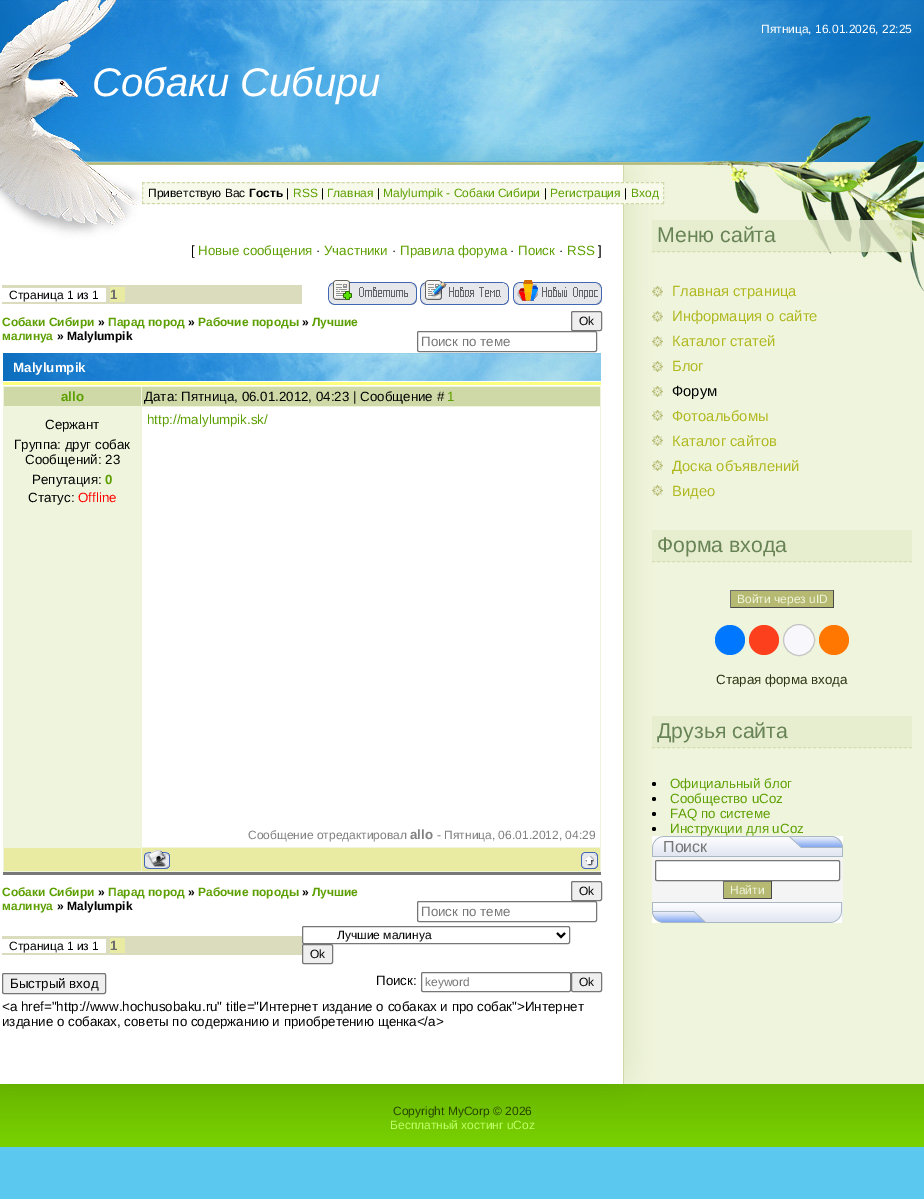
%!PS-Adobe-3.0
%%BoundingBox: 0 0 924 1199
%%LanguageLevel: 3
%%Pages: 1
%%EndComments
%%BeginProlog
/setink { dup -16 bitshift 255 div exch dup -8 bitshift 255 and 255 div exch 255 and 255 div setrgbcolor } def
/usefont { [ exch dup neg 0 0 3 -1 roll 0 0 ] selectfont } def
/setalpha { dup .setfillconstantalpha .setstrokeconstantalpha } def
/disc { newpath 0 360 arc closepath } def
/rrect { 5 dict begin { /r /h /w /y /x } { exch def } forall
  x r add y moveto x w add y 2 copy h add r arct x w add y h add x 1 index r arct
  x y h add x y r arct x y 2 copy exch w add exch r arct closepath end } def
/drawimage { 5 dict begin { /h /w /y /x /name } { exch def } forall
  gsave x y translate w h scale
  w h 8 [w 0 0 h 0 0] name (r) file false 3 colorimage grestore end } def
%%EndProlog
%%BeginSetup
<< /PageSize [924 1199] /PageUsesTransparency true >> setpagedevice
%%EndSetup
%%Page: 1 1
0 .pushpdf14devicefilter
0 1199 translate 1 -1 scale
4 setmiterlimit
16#5BC9EF setink
0 0 924 1199 rectfill
(img1.raw) 0 292 924 752 drawimage
(img2.raw) 0 0 924 292 drawimage
/LiberationSans-Regular 12 usefont
16#FFFFFF setink
761 33 moveto (Пятница, 16.01.2026, 22:25) show
/LiberationSans-Italic 40 usefont
92 96 moveto (Собаки Сибири) show
16#F7FAEB setink
142 182 522 22 rectfill
16#CFD9A8 setink
[3 1.99] 0 setdash
142 182.5 moveto 664 182.5 lineto stroke
[3 1.75] 0 setdash
663.5 182 moveto 663.5 204 lineto stroke
[3 1.99] 0 setdash
142 203.5 moveto 664 203.5 lineto stroke
[3 1.75] 0 setdash
142.5 182 moveto 142.5 204 lineto stroke
/LiberationSans-Regular 12 usefont
16#000000 setink
148 197 moveto (Приветствую Вас) show
/LiberationSans-Bold 12 usefont
249 197 moveto (Гость) show
/LiberationSans-Regular 12 usefont
286 197 moveto (|) show
16#5C9F00 setink
293 197 moveto (RSS) show
16#000000 setink
321 197 moveto (|) show
16#5C9F00 setink
327 197 moveto (Главная) show
16#000000 setink
377 197 moveto (|) show
16#5C9F00 setink
383 197 moveto (Malylumpik - Собаки Сибири) show
16#000000 setink
544 197 moveto (|) show
16#5C9F00 setink
550 197 moveto (Регистрация) show
16#000000 setink
624 197 moveto (|) show
16#5C9F00 setink
631 197 moveto (Вход) show
/LiberationSans-Regular 13.35 usefont
16#000000 setink
191 255 moveto ([) show
16#5C9F00 setink
198 255 moveto (Новые сообщения) show
16#000000 setink
316 255 moveto (·) show
16#5C9F00 setink
324 255 moveto (Участники) show
16#000000 setink
392 255 moveto (·) show
16#5C9F00 setink
400 255 moveto (Правила форума) show
16#000000 setink
510 255 moveto (·) show
16#5C9F00 setink
518 255 moveto (Поиск) show
16#000000 setink
559 255 moveto (·) show
16#5C9F00 setink
567 255 moveto (RSS) show
16#000000 setink
598 255 moveto (]) show
16#DBDCBE setink
2 285 300 19 rectfill
16#FFFFFF setink
2 288 104 14 rectfill
/LiberationSans-Regular 12 usefont
16#000000 setink
9 299 moveto (Страница 1 из 1) show
16#E9EBA2 setink
110 287 15 15 rectfill
/LiberationSans-Bold 13.35 usefont
16#6E6E6E setink
110 299 moveto (1) show
(img3.raw) 328 280 89 25 drawimage
(img4.raw) 420 280 89 25 drawimage
(img5.raw) 513 280 89 25 drawimage
/LiberationSans-Bold 12 usefont
16#5C9F00 setink
2 326 moveto (Собаки Сибири) show
16#000000 setink
98 326 moveto (») show
16#5C9F00 setink
108 326 moveto (Парад пород) show
16#000000 setink
188 326 moveto (») show
16#5C9F00 setink
198 326 moveto (Рабочие породы) show
16#000000 setink
302 326 moveto (») show
16#5C9F00 setink
312 326 moveto (Лучшие) show
2 340 moveto (малинуа) show
16#000000 setink
57 340 moveto (» Malylumpik) show
16#EFEFEF setink
571.5 311.5 30 19 1.5 rrect gsave fill grestore
16#767676 setink
[] 0 setdash
stroke
/LiberationSans-Regular 12 usefont
16#000000 setink
579 325 moveto (Ok) show
16#767676 setink
417.5 331.5 179 20 1.5 rrect stroke
/LiberationSans-Regular 13.35 usefont
16#757575 setink
421 346 moveto (Поиск по теме) show
(img6.raw) 3 353 598 28 drawimage
/LiberationSans-Bold 13.35 usefont
16#FFFFFF setink
13 372 moveto (Malylumpik) show
[
    [3 382 598 3 16#FCFF7C]
    [3 386 598 486 16#EFF4DC]
    [3 872 598 3 16#787878]
    [4 387 137 19 16#CFD9A8]
] { aload pop setink rectfill } forall
16#5C9F00 setink
61 401 moveto (allo) show
16#CFD9A8 setink
142 387 458 19 rectfill
/LiberationSans-Regular 13.35 usefont
16#000000 setink
144 401 moveto (Дата: Пятница, 06.01.2012, 04:23 | Сообщение #) show
16#5C9F00 setink
447 401 moveto (1) show
16#000000 setink
[
    [(Сержант) 45 429]
    [(Группа: друг собак) 14 449]
    [(Сообщений: 23) 25 464]
    [(Репутация:) 32 484]
] { aload pop moveto show } forall
/LiberationSans-Bold 13.35 usefont
16#5C9F00 setink
105 484 moveto (0) show
/LiberationSans-Regular 13.35 usefont
16#000000 setink
28 502 moveto (Статус:) show
16#FF0000 setink
78 502 moveto (Offline) show
16#FFFFFF setink
142 407 458 440 rectfill
16#5C9F00 setink
147 424 moveto (http://malylumpik.sk/) show
/LiberationSans-Regular 12 usefont
16#808080 setink
248 839 moveto (Сообщение отредактировал) show
/LiberationSans-Bold 13.35 usefont
410 839 moveto (allo) show
/LiberationSans-Regular 12 usefont
437 839 moveto (- Пятница, 06.01.2012, 04:29) show
16#E9EBA2 setink
4 848 137 23 rectfill
142 848 458 23 rectfill
(img7.raw) 144 850 26 19 drawimage
(img8.raw) 581 852 17 17 drawimage
/LiberationSans-Bold 12 usefont
16#5C9F00 setink
2 896 moveto (Собаки Сибири) show
16#000000 setink
98 896 moveto (») show
16#5C9F00 setink
108 896 moveto (Парад пород) show
16#000000 setink
188 896 moveto (») show
16#5C9F00 setink
198 896 moveto (Рабочие породы) show
16#000000 setink
302 896 moveto (») show
16#5C9F00 setink
312 896 moveto (Лучшие) show
2 910 moveto (малинуа) show
16#000000 setink
57 910 moveto (» Malylumpik) show
16#EFEFEF setink
571.5 881.5 30 19 1.5 rrect gsave fill grestore
16#767676 setink
stroke
/LiberationSans-Regular 12 usefont
16#000000 setink
579 895 moveto (Ok) show
16#767676 setink
417.5 901.5 179 20 1.5 rrect stroke
/LiberationSans-Regular 13.35 usefont
16#757575 setink
421 916 moveto (Поиск по теме) show
16#DBDCBE setink
2 936 300 19 rectfill
16#FFFFFF setink
2 939 104 14 rectfill
/LiberationSans-Regular 12 usefont
16#000000 setink
9 950 moveto (Страница 1 из 1) show
16#E9EBA2 setink
110 938 15 15 rectfill
/LiberationSans-Bold 13.35 usefont
16#6E6E6E setink
110 950 moveto (1) show
16#767676 setink
302.5 926.5 267 17 1.5 rrect stroke
16#000000 setink
2 setlinewidth
557 933 moveto 561 937 lineto 565 933 lineto stroke
/LiberationSans-Regular 12 usefont
337 939 moveto (Лучшие малинуа) show
16#EFEFEF setink
302.5 944.5 30 19 1.5 rrect gsave fill grestore
16#767676 setink
1 setlinewidth
stroke
16#000000 setink
310 958 moveto (Ok) show
16#EFEFEF setink
2.5 973.5 103 20 1.5 rrect gsave fill grestore
16#767676 setink
stroke
/LiberationSans-Regular 13.35 usefont
16#000000 setink
10 988 moveto (Быстрый вход) show
376 985 moveto (Поиск:) show
16#767676 setink
421.5 972.5 149 19 1.5 rrect stroke
/LiberationSans-Regular 12 usefont
16#757575 setink
425 986 moveto (keyword) show
16#EFEFEF setink
571.5 972.5 30 19 1.5 rrect gsave fill grestore
16#767676 setink
stroke
16#000000 setink
579 986 moveto (Ok) show
/LiberationSans-Regular 13.35 usefont
2 1011 moveto (<a href="http://www.hochusobaku.ru" title="Интернет издание о собаках и про собак">Интернет) show
2 1026 moveto (издание о собаках, советы по содержанию и приобретению щенка</a>) show
0.8 setalpha
16#E5EBCC setink
652 220 260 32 rectfill
16#CFD9A8 setink
[3 2.04] 0 setdash
652 251.5 moveto 912 251.5 lineto stroke
/LiberationSans-Regular 21.25 usefont
1 setalpha
16#688456 setink
657 242 moveto (Меню сайта) show
(img9.raw) 652 286 11 11 drawimage
/LiberationSans-Regular 14.75 usefont
16#B0B921 setink
672 296 moveto (Главная страница) show
(img9.raw) 652 311 11 11 drawimage
672 321 moveto (Информация о сайте) show
(img9.raw) 652 336 11 11 drawimage
672 346 moveto (Каталог статей) show
(img9.raw) 652 361 11 11 drawimage
672 371 moveto (Блог) show
(img9.raw) 652 386 11 11 drawimage
16#000000 setink
672 396 moveto (Форум) show
(img9.raw) 652 410 11 11 drawimage
16#B0B921 setink
672 421 moveto (Фотоальбомы) show
(img9.raw) 652 435 11 11 drawimage
672 446 moveto (Каталог сайтов) show
(img9.raw) 652 460 11 11 drawimage
672 471 moveto (Доска объявлений) show
(img9.raw) 652 485 11 11 drawimage
672 496 moveto (Видео) show
16#E7EDCF setink
652 530 260 32 rectfill
16#D5DEB2 setink
652 561.5 moveto 912 561.5 lineto stroke
/LiberationSans-Regular 21.25 usefont
16#688456 setink
657 552 moveto (Форма входа) show
[
    [731 591 102 16 16#B5B972]
    [730 590 104 1 16#6E6E6E]
    [833 590 1 18 16#494949]
    [730 607 104 1 16#494949]
    [730 590 1 18 16#6E6E6E]
] { aload pop setink rectfill } forall
/LiberationSans-Regular 12 usefont
16#EFF4DC setink
737 603 moveto (Войти через uID) show
16#0077FF setink
730 640 15 disc fill
16#FC3F1D setink
764 640 15 disc fill
16#F8F8FC setink
799 640 15.5 disc gsave fill grestore
16#C4C4C4 setink
[] 0 setdash
stroke
16#FF7700 setink
834 640 15 disc fill
/LiberationSans-Regular 13.35 usefont
16#2B3414 setink
716 684 moveto (Старая форма входа) show
16#E7EDCF setink
652 716 260 32 rectfill
16#D5DEB2 setink
[3 2.04] 0 setdash
652 747.5 moveto 912 747.5 lineto stroke
/LiberationSans-Regular 21.25 usefont
16#688456 setink
657 738 moveto (Друзья сайта) show
16#000000 setink
654 784 2 disc fill
/LiberationSans-Regular 13.35 usefont
16#5C9F00 setink
670 788 moveto (Официальный блог) show
16#000000 setink
654 799 2 disc fill
16#5C9F00 setink
670 803 moveto (Сообщество uCoz) show
16#000000 setink
654 814 2 disc fill
16#5C9F00 setink
670 818 moveto (FAQ по системе) show
16#000000 setink
654 829 2 disc fill
16#5C9F00 setink
670 833 moveto (Инструкции для uCoz) show
(img10.raw) 652 836 11 21 drawimage
(img11.raw) 663 836 126 21 drawimage
/LiberationSans-Regular 16 usefont
16#757575 setink
663 852 moveto (Поиск) show
(img12.raw) 789 836 54 21 drawimage
16#F4F4F4 setink
652 857 191 45 rectfill
16#FFFFFF setink
655.5 860.5 184 20 1.5 rrect gsave fill grestore
16#767676 setink
[] 0 setdash
stroke
[
    [724 882 47 16 16#B5B972]
    [723 881 49 1 16#6E6E6E]
    [771 881 1 18 16#494949]
    [723 898 49 1 16#494949]
    [723 881 1 18 16#6E6E6E]
] { aload pop setink rectfill } forall
/LiberationSans-Regular 12 usefont
16#EFF4DC setink
730 894 moveto (Найти) show
16#E9ECF5 setink
842 902 1 21 rectfill
(img13.raw) 652 902 190 21 drawimage
(img14.raw) 0 1044 924 103 drawimage
16#284500 setink
393 1115 moveto (Copyright MyCorp © 2026) show
16#BFFF67 setink
390 1129 moveto (Бесплатный хостинг uCoz) show
.poppdf14devicefilter showpage
%%EOF
